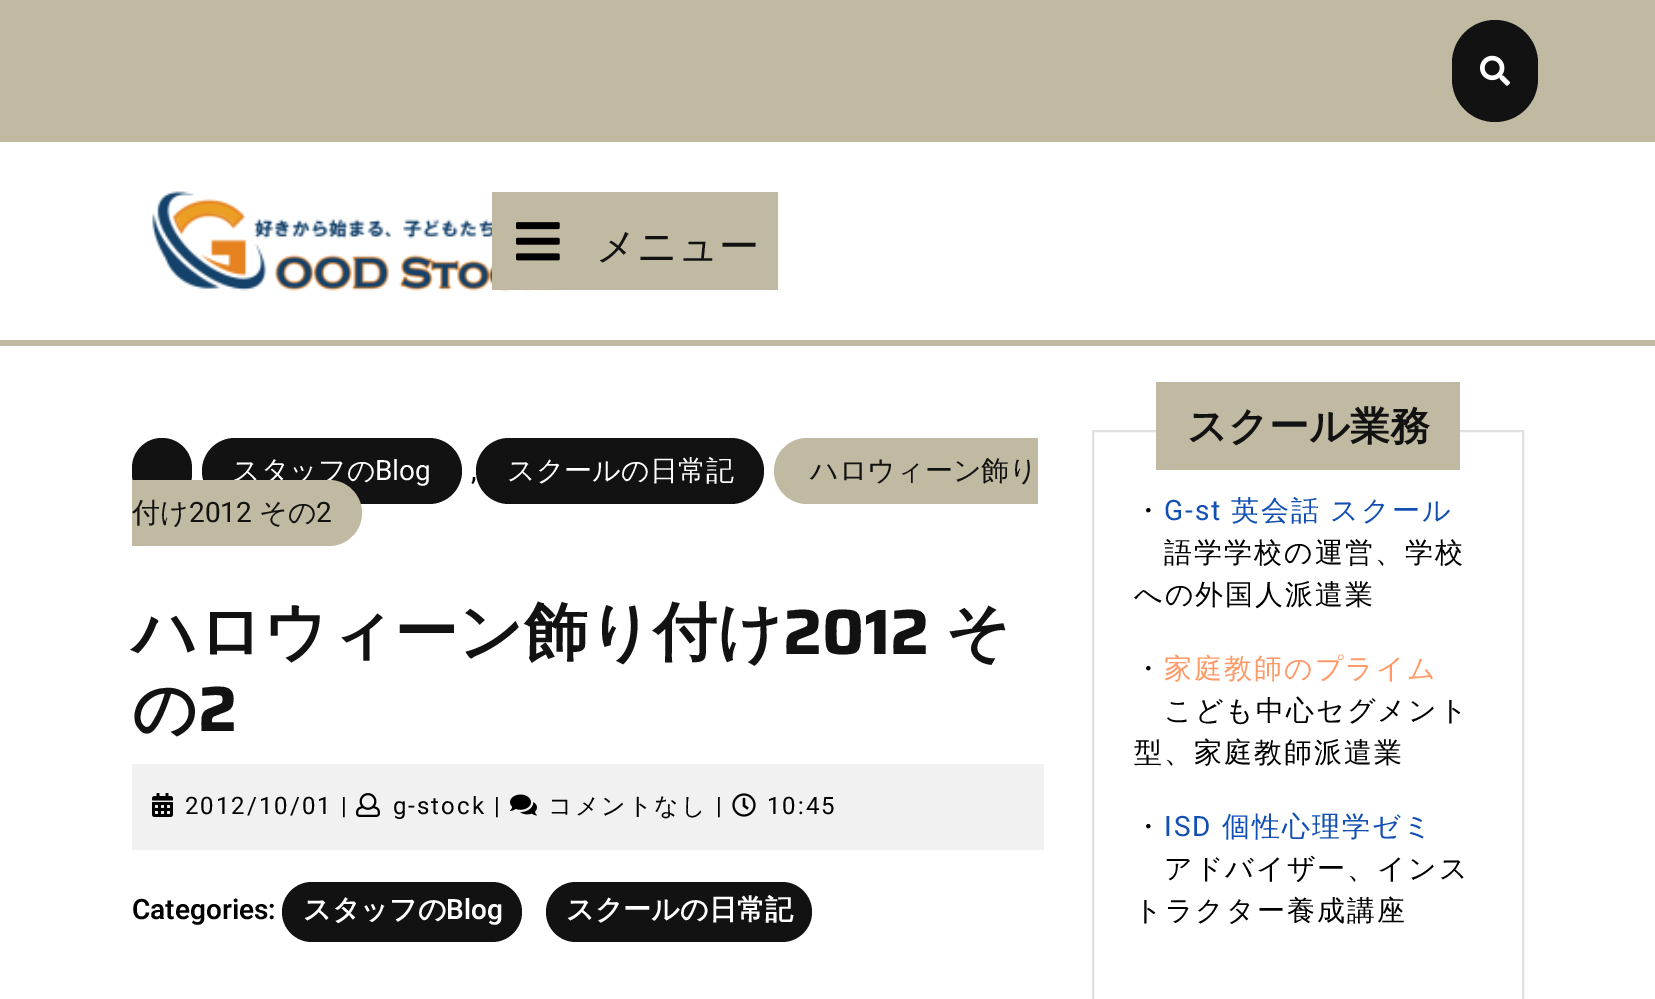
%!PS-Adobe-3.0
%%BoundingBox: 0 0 1655 999
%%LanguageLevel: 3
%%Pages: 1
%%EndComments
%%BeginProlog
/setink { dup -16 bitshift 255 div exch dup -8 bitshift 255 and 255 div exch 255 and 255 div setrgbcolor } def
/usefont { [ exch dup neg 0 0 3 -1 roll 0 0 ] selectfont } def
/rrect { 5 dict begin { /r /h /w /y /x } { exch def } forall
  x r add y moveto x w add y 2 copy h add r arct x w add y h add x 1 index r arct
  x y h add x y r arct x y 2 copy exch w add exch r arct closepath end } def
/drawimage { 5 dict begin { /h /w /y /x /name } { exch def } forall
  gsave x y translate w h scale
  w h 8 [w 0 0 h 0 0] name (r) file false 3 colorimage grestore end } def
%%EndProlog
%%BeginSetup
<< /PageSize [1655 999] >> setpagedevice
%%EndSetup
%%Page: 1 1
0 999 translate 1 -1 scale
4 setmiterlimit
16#FFFFFF setink
0 0 1655 999 rectfill
16#C1BAA2 setink
0 0 1655 142 rectfill
16#121212 setink
1452 20 86 102 43 rrect fill
(img1.raw) 1480 55 30 31 drawimage
16#C1BAA2 setink
0 340 1655 6 rectfill
(img2.raw) 152 191 400 100 drawimage
492 192 286 98 rectfill
(img3.raw) 516 222 44 39 drawimage
/WenQuanYiZenHei-Medium 40 usefont
16#121212 setink
596 260 moveto (メニュー) show
132 438 60 66 30 rrect fill
202 438 260 66 33 rrect fill
/WenQuanYiZenHei-Medium 28 usefont
16#FFFFFF setink
232 480 moveto (スタッフの) show
/Heebo-Regular 28 usefont
375 480 moveto (Blog) show
16#000000 setink
471 480 moveto (,) show
16#121212 setink
476 438 288 66 33 rrect fill
/WenQuanYiZenHei-Medium 28 usefont
16#FFFFFF setink
507 480 moveto (スクールの日常記) show
16#C1BAA2 setink
807 438 moveto 1038 438 lineto 1038 504 lineto 807 504 lineto 789 504 774 489 774 471 curveto 774 453 789 438 807 438 curveto closepath fill
16#121212 setink
810 480 moveto (ハロウィーン飾り) show
16#C1BAA2 setink
132 480 moveto 329 480 lineto 347 480 362 495 362 513 curveto 362 531 347 546 329 546 curveto 132 546 lineto closepath fill
16#121212 setink
132 522 moveto (付け) show
/Heebo-Regular 28 usefont
189 522 moveto (2012) show
/WenQuanYiZenHei-Medium 28 usefont
259 522 moveto (その) show
/Heebo-Regular 28 usefont
316 522 moveto (2) show
/WenQuanYiZenHei-Bold 64 usefont
132 654 moveto (ハロウィーン飾り付け) show
/Saira-Bold 64 usefont
783 654 moveto (2012) show
/WenQuanYiZenHei-Bold 64 usefont
945 654 moveto (そ) show
132 731 moveto (の) show
/Saira-Bold 64 usefont
198 731 moveto (2) show
16#F1F1F1 setink
132 764 912 86 rectfill
(img4.raw) 152 793 21 24 drawimage
/Heebo-Regular 24 usefont
16#000000 setink
185 814 moveto 2 0 (2012/10/01 |) ashow
(img5.raw) 356 793 24 24 drawimage
393 814 moveto 2 0 (g-stock |) ashow
(img6.raw) 510 794 27 22 drawimage
/WenQuanYiZenHei-Medium 24 usefont
548 814 moveto 2 0 (コメントなし) ashow
/Heebo-Regular 24 usefont
716 814 moveto 2 0 (|) ashow
(img7.raw) 732 793 24 24 drawimage
767 814 moveto 2 0 (10:45) ashow
/Heebo-SemiBold 28 usefont
132 919 moveto (Categories:) show
16#121212 setink
282 882 240 60 30 rrect fill
/WenQuanYiZenHei-Bold 28 usefont
16#FFFFFF setink
303 919 moveto (スタッフの) show
/Heebo-SemiBold 28 usefont
446 919 moveto (Blog) show
16#121212 setink
546 882 266 60 30 rrect fill
/WenQuanYiZenHei-Bold 28 usefont
16#FFFFFF setink
566 919 moveto (スクールの日常記) show
16#E1E1E1 setink
2 setlinewidth
1093 431 430 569 rectstroke
16#C1BAA2 setink
1156 382 304 88 rectfill
/WenQuanYiZenHei-Bold 40 usefont
16#121212 setink
1187 440 moveto (スクール業務) show
/WenQuanYiZenHei-Medium 28 usefont
16#000000 setink
1134 520 moveto 2 0 (・) ashow
/Heebo-Regular 28 usefont
16#114FB2 setink
1164 520 moveto 2 0 (G-st) ashow
/WenQuanYiZenHei-Medium 28 usefont
1231 520 moveto -1 0 32 2 0 (英会話 スクール) awidthshow
16#000000 setink
1164 562 moveto 2 0 (語学学校の運営、学校) ashow
1134 604 moveto 2 0 (への外国人派遣業) ashow
1134 678 moveto 2 0 (・) ashow
16#FF9966 setink
1164 678 moveto 2 0 (家庭教師のプライム) ashow
16#000000 setink
1164 720 moveto 2 0 (こども中心セグメント) ashow
1134 762 moveto 2 0 (型、家庭教師派遣業) ashow
1134 836 moveto 2 0 (・) ashow
/Heebo-Regular 28 usefont
16#114FB2 setink
1164 836 moveto 2 0 (ISD) ashow
/WenQuanYiZenHei-Medium 28 usefont
1222 836 moveto 2 0 (個性心理学ゼミ) ashow
16#000000 setink
1164 878 moveto 2 0 (アドバイザー、インス) ashow
1134 920 moveto 2 0 (トラクター養成講座) ashow
showpage
%%EOF
